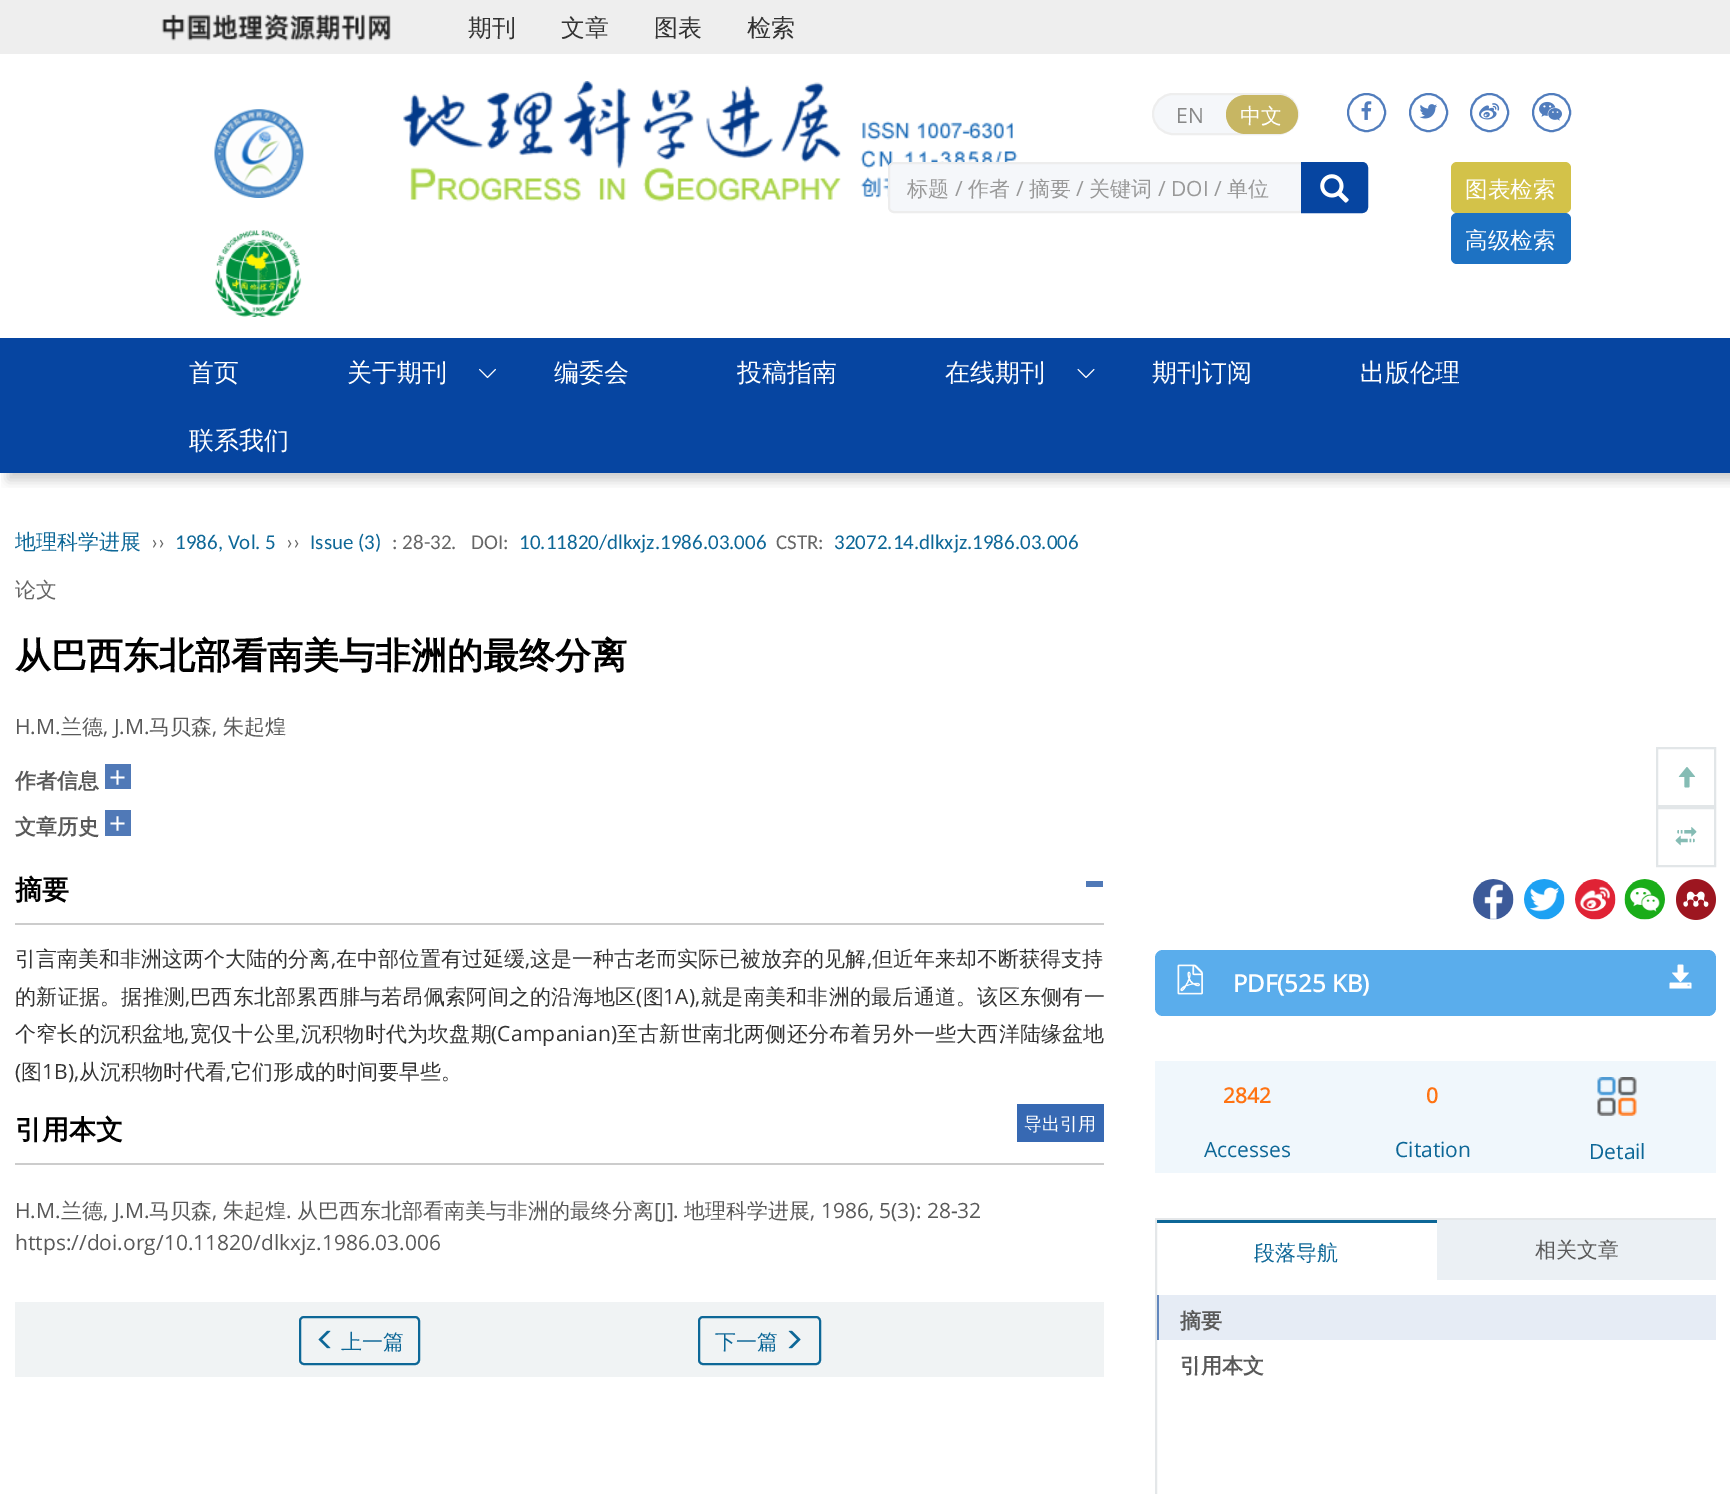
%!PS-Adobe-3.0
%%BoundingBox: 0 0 1730 1494
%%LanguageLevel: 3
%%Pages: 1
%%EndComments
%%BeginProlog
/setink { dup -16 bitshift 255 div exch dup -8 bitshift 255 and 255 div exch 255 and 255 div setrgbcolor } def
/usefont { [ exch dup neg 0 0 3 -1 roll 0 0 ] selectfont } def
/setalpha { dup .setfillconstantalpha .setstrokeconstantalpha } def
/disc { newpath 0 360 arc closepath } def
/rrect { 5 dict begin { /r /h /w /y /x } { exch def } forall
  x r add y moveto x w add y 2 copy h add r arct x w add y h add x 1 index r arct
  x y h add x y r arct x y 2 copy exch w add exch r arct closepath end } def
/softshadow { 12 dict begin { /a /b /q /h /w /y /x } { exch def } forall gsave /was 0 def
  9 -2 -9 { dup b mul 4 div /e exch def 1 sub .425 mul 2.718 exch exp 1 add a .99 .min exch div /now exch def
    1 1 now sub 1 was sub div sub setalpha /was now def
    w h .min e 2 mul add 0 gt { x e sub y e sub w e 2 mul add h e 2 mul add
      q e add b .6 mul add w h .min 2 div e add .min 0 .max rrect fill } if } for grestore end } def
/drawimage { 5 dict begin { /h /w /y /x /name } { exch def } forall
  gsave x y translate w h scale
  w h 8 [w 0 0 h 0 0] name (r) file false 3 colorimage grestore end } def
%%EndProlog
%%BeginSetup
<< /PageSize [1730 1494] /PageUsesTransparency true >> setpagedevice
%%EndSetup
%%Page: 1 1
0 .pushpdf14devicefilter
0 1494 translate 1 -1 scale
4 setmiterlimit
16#FFFFFF setink
0 0 1730 1494 rectfill
gsave
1 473 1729 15 rectclip
16#000000 setink
8 8 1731 472 0 6 0.2 softshadow
grestore
16#EEEEEE setink
0 0 1730 54 rectfill
(img1.raw) 161 13 230 28 drawimage
/WenQuanYiZenHei-Medium 24 usefont
16#333333 setink
[
    [(期刊) 468 36]
    [(文章) 561 36]
    [(图表) 654 36]
    [(检索) 747 36]
] { aload pop moveto show } forall
(img2.raw) 214 109 90 89 drawimage
(img3.raw) 215 230 87 87 drawimage
(img4.raw) 403 81 615 121 drawimage
16#F5F7FA setink
1153 94 145 40 20 rrect gsave fill grestore
16#EEEEEE setink
2 setlinewidth
stroke
/OpenSans-Regular 21 usefont
16#888888 setink
1176 123 moveto (EN) show
16#C7B663 setink
1226 95 72 39 19.5 rrect fill
/WenQuanYiZenHei-Medium 21 usefont
16#FFFFFF setink
1240 123 moveto (中文) show
16#517DBD setink
1366.5 112.5 18.5 disc stroke
(img5.raw) 1361 101 11 19 drawimage
1428.5 112.5 18.5 disc stroke
(img6.raw) 1419 104 18 15 drawimage
1489.5 112.5 18.5 disc stroke
(img7.raw) 1479 103 21 17 drawimage
1551.5 112.5 18.5 disc stroke
(img8.raw) 1539 101 23 20 drawimage
16#F5F7FA setink
889 163 415 49 5 rrect gsave fill grestore
16#EDEDED setink
stroke
16#999999 setink
907 196 moveto (标题) show
/OpenSans-Regular 21 usefont
955 196 moveto (/) show
/WenQuanYiZenHei-Medium 21 usefont
968 196 moveto (作者) show
/OpenSans-Regular 21 usefont
1016 196 moveto (/) show
/WenQuanYiZenHei-Medium 21 usefont
1029 196 moveto (摘要) show
/OpenSans-Regular 21 usefont
1076 196 moveto (/) show
/WenQuanYiZenHei-Medium 21 usefont
1089 196 moveto (关键词) show
/OpenSans-Regular 21 usefont
1158 196 moveto (/ DOI /) show
/WenQuanYiZenHei-Medium 21 usefont
1227 196 moveto (单位) show
16#0645A1 setink
1302 163 moveto 1362 163 lineto 1365 163 1367 165 1367 168 curveto 1367 207 lineto 1367 210 1365 212 1362 212 curveto 1302 212 lineto closepath gsave fill grestore
stroke
(img9.raw) 1320 174 29 29 drawimage
16#D3C249 setink
1451 162 120 51 6 rrect fill
/WenQuanYiZenHei-Medium 22.5 usefont
16#FFFFFF setink
1465 197 moveto (图表检索) show
16#1D72C3 setink
1451 213 120 51 6 rrect fill
16#FFFFFF setink
1465 248 moveto (高级检索) show
16#0645A1 setink
0 338 1730 135 rectfill
/WenQuanYiZenHei-Medium 25 usefont
16#FFFFFF setink
189 381 moveto (首页) show
347 381 moveto (关于期刊) show
(img10.raw) 479 368 17 11 drawimage
[
    [(编委会) 554 381]
    [(投稿指南) 737 381]
    [(在线期刊) 945 381]
] { aload pop moveto show } forall
(img11.raw) 1077 368 18 10 drawimage
[
    [(期刊订阅) 1152 381]
    [(出版伦理) 1360 381]
    [(联系我们) 189 449]
] { aload pop moveto show } forall
/WenQuanYiZenHei-Medium 21 usefont
16#0D6797 setink
15 549 moveto (地理科学进展) show
/Carlito-Regular 21 usefont
16#666666 setink
151 549 moveto (››) show
16#0D6797 setink
175 549 moveto (1986, Vol. 5) show
16#666666 setink
286 549 moveto (››) show
16#0D6797 setink
310 549 moveto (Issue \(3\)) show
16#666666 setink
392 549 moveto (: 28-32.) show
471 549 moveto (DOI:) show
16#0D6797 setink
519 549 moveto (10.11820/dlkxjz.1986.03.006) show
16#666666 setink
776 549 moveto (CSTR:) show
16#0D6797 setink
834 549 moveto (32072.14.dlkxjz.1986.03.006) show
/WenQuanYiZenHei-Medium 21 usefont
16#666666 setink
15 597 moveto (论文) show
/WenQuanYiZenHei-Bold 36 usefont
16#000000 setink
15 668 moveto (从巴西东北部看南美与非洲的最终分离) show
/OpenSans-Regular 21 usefont
16#595959 setink
15 734 moveto (H.M.) show
/WenQuanYiZenHei-Medium 21 usefont
61 734 moveto (兰德) show
/OpenSans-Regular 21 usefont
103 734 moveto (, J.M.) show
/WenQuanYiZenHei-Medium 21 usefont
149 734 moveto (马贝森) show
/OpenSans-Regular 21 usefont
212 734 moveto (,) show
/WenQuanYiZenHei-Medium 21 usefont
223 734 moveto (朱起煌) show
/WenQuanYiZenHei-Bold 21 usefont
15 788 moveto (作者信息) show
16#5079B7 setink
105 764 26 25 rectfill
/OpenSans-Regular 30 usefont
16#FFFFFF setink
109 788 moveto (+) show
/WenQuanYiZenHei-Bold 21 usefont
16#595959 setink
15 834 moveto (文章历史) show
16#5079B7 setink
105 810 26 26 rectfill
/OpenSans-Regular 30 usefont
16#FFFFFF setink
109 834 moveto (+) show
16#CCCCCC setink
15 923 1089 2 rectfill
/WenQuanYiZenHei-Bold 27 usefont
16#000000 setink
15 899 moveto (摘要) show
16#5079B7 setink
1086 881 17 6 rectfill
/WenQuanYiZenHei-Medium 21 usefont
16#333333 setink
15 966 moveto (引言南美和非洲这两个大陆的分离) show
/OpenSans-Regular 21 usefont
331 966 moveto (,) show
/WenQuanYiZenHei-Medium 21 usefont
336 966 moveto (在中部位置有过延缓) show
/OpenSans-Regular 21 usefont
525 966 moveto (,) show
/WenQuanYiZenHei-Medium 21 usefont
530 966 moveto (这是一种古老而实际已被放弃的见解) show
/OpenSans-Regular 21 usefont
867 966 moveto (,) show
/WenQuanYiZenHei-Medium 21 usefont
872 966 moveto (但近年来却不断获得支持) show
15 1004 moveto 0.25 0 (的新证据。据推测) ashow
190 1004 moveto 0.25 0 (巴西东北部累西腓与若昂佩索阿间之的沿海地区 图) ashow
/OpenSans-Regular 21 usefont
663 1004 moveto 0.25 0 (1A\),) ashow
/WenQuanYiZenHei-Medium 21 usefont
701 1004 moveto 0.25 0 (就是南美和非洲的最后通道。该区东侧有一) ashow
/OpenSans-Regular 21 usefont
185 1004 moveto 0.25 0 (,) ashow
636 1004 moveto 0.25 0 (\() ashow
/WenQuanYiZenHei-Medium 21 usefont
15 1041 moveto 0.2 0 (个窄长的沉积盆地) ashow
/OpenSans-Regular 21 usefont
184 1041 moveto 0.2 0 (,) ashow
/WenQuanYiZenHei-Medium 21 usefont
190 1041 moveto 0.2 0 (宽仅十公里) ashow
/OpenSans-Regular 21 usefont
295 1041 moveto 0.2 0 (,) ashow
/WenQuanYiZenHei-Medium 21 usefont
301 1041 moveto 0.2 0 (沉积物时代为坎盘期) ashow
/OpenSans-Regular 21 usefont
491 1041 moveto 0.2 0 (\(Campanian\)) ashow
/WenQuanYiZenHei-Medium 21 usefont
617 1041 moveto 0.2 0 (至古新世南北两侧还分布着另外一些大西洋陆缘盆地) ashow
/OpenSans-Regular 21 usefont
15 1079 moveto (\() show
/WenQuanYiZenHei-Medium 21 usefont
21 1079 moveto (图) show
/OpenSans-Regular 21 usefont
42 1079 moveto (1B\),) show
/WenQuanYiZenHei-Medium 21 usefont
79 1079 moveto (从沉积物时代看) show
/OpenSans-Regular 21 usefont
226 1079 moveto (,) show
/WenQuanYiZenHei-Medium 21 usefont
231 1079 moveto (它们形成的时间要早些。) show
16#CCCCCC setink
15 1163 1089 2 rectfill
/WenQuanYiZenHei-Bold 27 usefont
16#000000 setink
15 1139 moveto (引用本文) show
16#3769B3 setink
1017 1104 87 38 rectfill
/WenQuanYiZenHei-Medium 18 usefont
16#FFFFFF setink
1024 1130 moveto (导出引用) show
/OpenSans-Regular 21 usefont
16#595959 setink
15 1218 moveto (H.M.) show
/WenQuanYiZenHei-Medium 21 usefont
61 1218 moveto (兰德) show
/OpenSans-Regular 21 usefont
103 1218 moveto (, J.M.) show
/WenQuanYiZenHei-Medium 21 usefont
149 1218 moveto (马贝森) show
/OpenSans-Regular 21 usefont
212 1218 moveto (,) show
/WenQuanYiZenHei-Medium 21 usefont
223 1218 moveto (朱起煌) show
/OpenSans-Regular 21 usefont
286 1218 moveto (.) show
/WenQuanYiZenHei-Medium 21 usefont
297 1218 moveto (从巴西东北部看南美与非洲的最终分离) show
/OpenSans-Regular 21 usefont
654 1218 moveto ([J].) show
/WenQuanYiZenHei-Medium 21 usefont
684 1218 moveto (地理科学进展) show
/OpenSans-Regular 21 usefont
810 1218 moveto (, 1986, 5\(3\): 28-32) show
15 1250 moveto (https://doi.org/10.11820/dlkxjz.1986.03.006) show
16#F0F3F4 setink
15 1302 1089 75 rectfill
16#0D6797 setink
300 1317 119 47 4 rrect stroke
(img12.raw) 318 1330 13 19 drawimage
/WenQuanYiZenHei-Medium 21 usefont
341 1349 moveto (上一篇) show
699 1317 121 47 4 rrect stroke
715 1349 moveto (下一篇) show
(img13.raw) 788 1330 13 19 drawimage
(img14.raw) 1473 879 41 41 drawimage
(img15.raw) 1524 879 41 41 drawimage
(img16.raw) 1575 879 41 41 drawimage
(img17.raw) 1624 879 41 41 drawimage
(img18.raw) 1676 879 40 41 drawimage
16#5AADEC setink
1155 950 561 66 8 rrect fill
(img19.raw) 1177 964 26 31 drawimage
/OpenSans-Bold 24 usefont
16#FFFFFF setink
1233 992 moveto (PDF\(525 KB\)) show
(img20.raw) 1669 964 23 25 drawimage
16#F0F7FC setink
1155 1061 561 112 rectfill
/OpenSans-Bold 21 usefont
16#FF7312 setink
1223 1103 moveto (2842) show
/OpenSans-Regular 21 usefont
16#0D6797 setink
1204 1157 moveto (Accesses) show
/OpenSans-Bold 21 usefont
16#FF7312 setink
1426 1103 moveto (0) show
/OpenSans-Regular 21 usefont
16#0D6797 setink
1395 1157 moveto (Citation) show
(img21.raw) 1597 1077 40 39 drawimage
1589 1159 moveto (Detail) show
gsave
15 864 1701 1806 rectclip
16#E4E7E9 setink
1156 1219 562 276 rectstroke
grestore
16#EBF0F4 setink
1437 1220 279 60 rectfill
16#0D6797 setink
1157 1220 280 3 rectfill
/WenQuanYiZenHei-Medium 21 usefont
1254 1260 moveto (段落导航) show
16#595959 setink
1535 1257 moveto (相关文章) show
16#E6ECF5 setink
1159 1295 557 45 rectfill
16#6287BE setink
1157 1295 2 45 rectfill
/WenQuanYiZenHei-Bold 21 usefont
16#595959 setink
1180 1328 moveto (摘要) show
1180 1373 moveto (引用本文) show
16#E2E6E8 setink
1657 748 58 58 rectstroke
(img22.raw) 1678 767 18 21 drawimage
1657 808 58 58 rectstroke
(img23.raw) 1675 827 22 19 drawimage
.poppdf14devicefilter showpage
%%EOF
